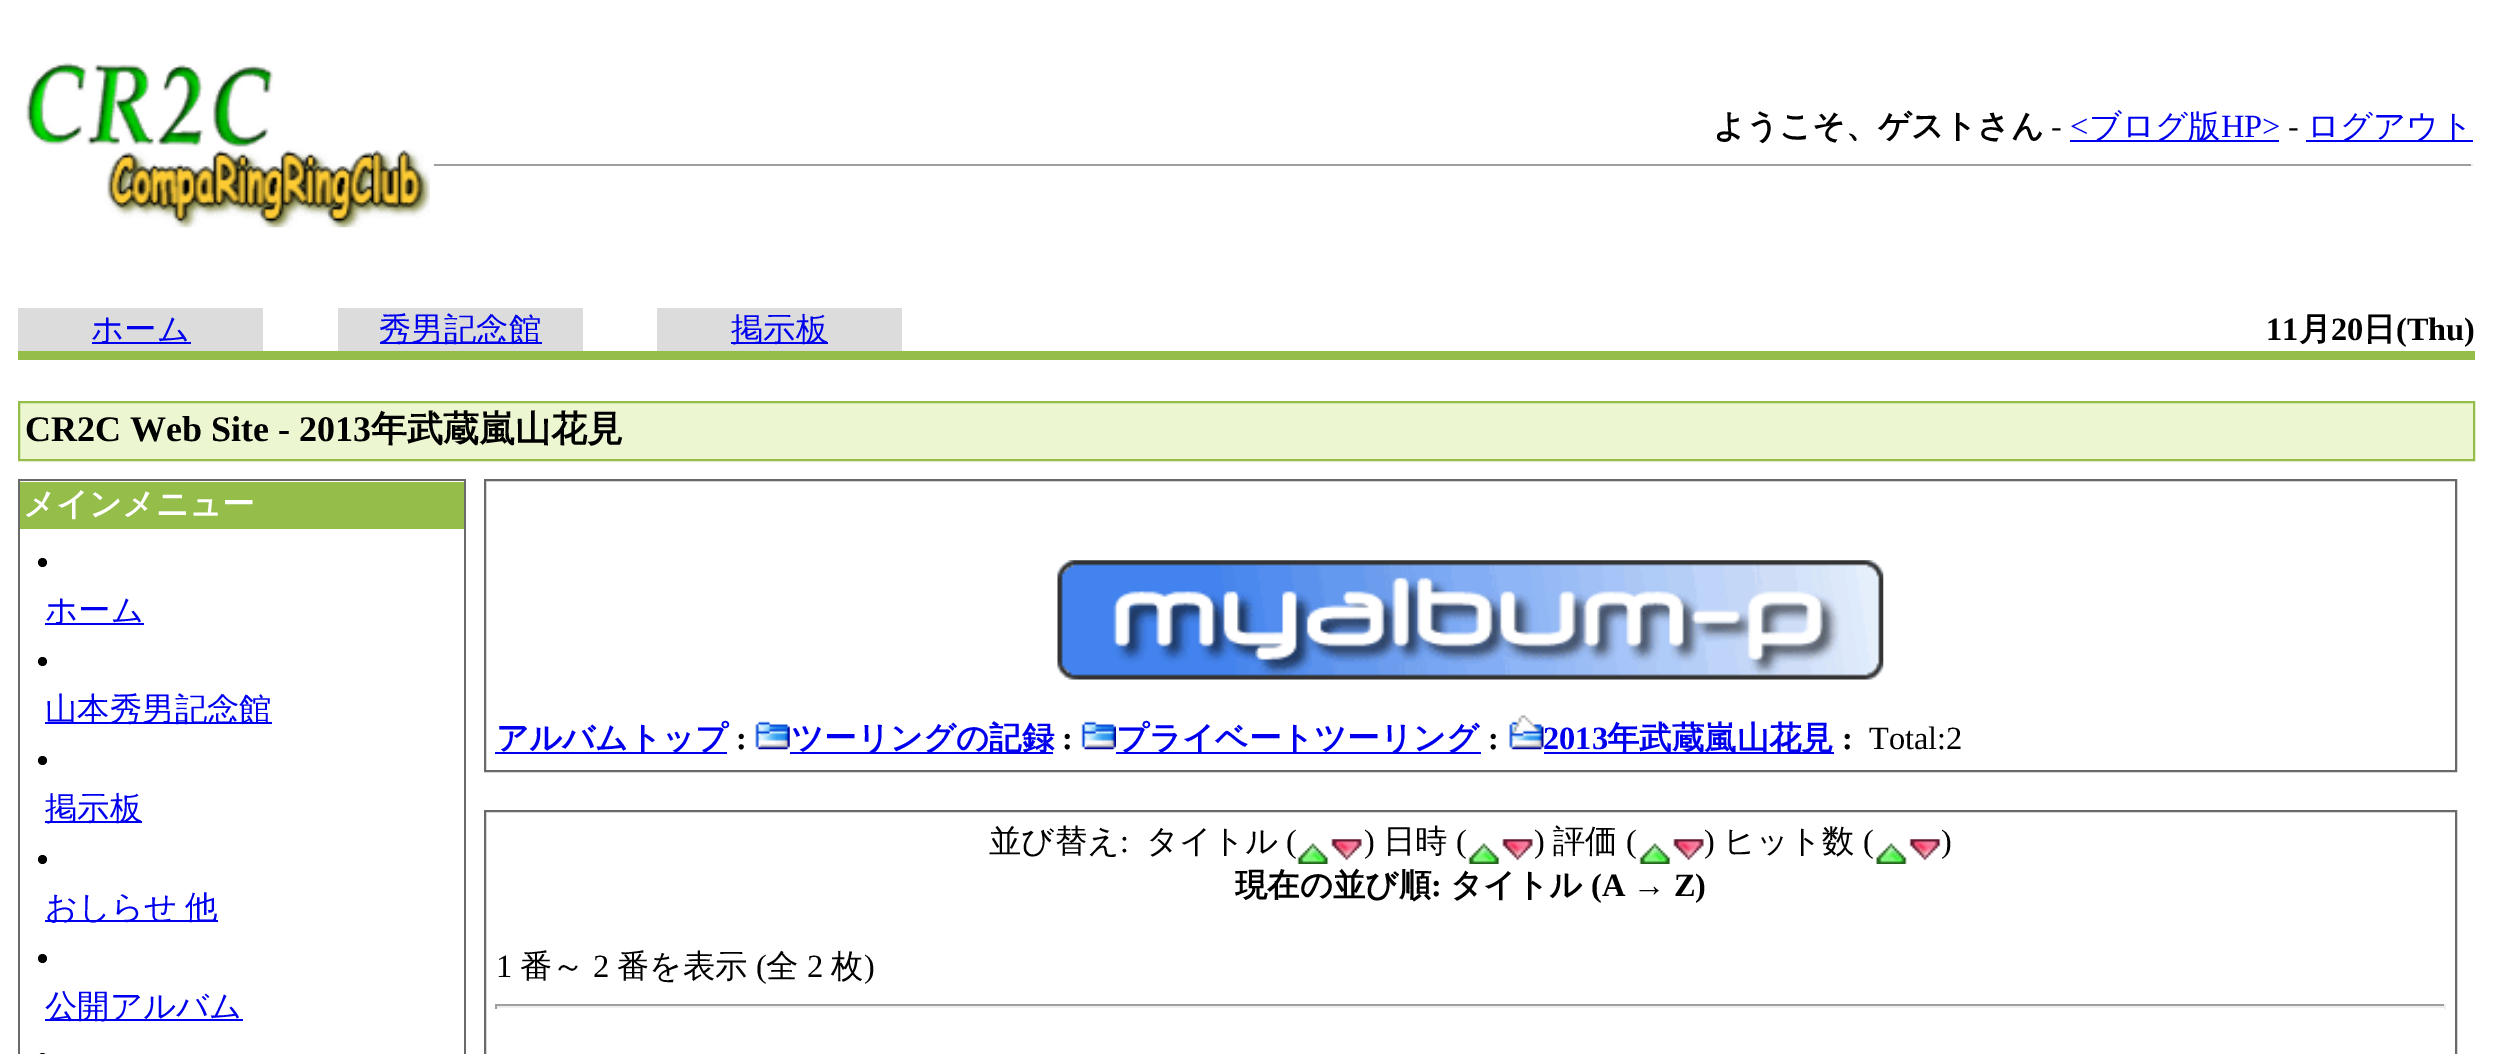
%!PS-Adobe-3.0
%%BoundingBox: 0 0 2493 1054
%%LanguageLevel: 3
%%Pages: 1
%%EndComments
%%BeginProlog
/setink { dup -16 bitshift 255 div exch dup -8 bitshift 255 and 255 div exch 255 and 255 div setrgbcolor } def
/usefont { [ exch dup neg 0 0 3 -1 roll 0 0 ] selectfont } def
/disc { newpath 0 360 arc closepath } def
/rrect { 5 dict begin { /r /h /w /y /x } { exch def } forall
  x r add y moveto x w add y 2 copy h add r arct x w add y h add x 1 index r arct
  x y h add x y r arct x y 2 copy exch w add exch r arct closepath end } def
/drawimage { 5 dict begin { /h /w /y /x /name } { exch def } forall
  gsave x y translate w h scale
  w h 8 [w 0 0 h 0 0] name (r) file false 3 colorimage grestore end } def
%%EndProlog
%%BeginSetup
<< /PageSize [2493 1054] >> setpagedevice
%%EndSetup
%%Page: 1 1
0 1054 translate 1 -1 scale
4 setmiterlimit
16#FFFFFF setink
0 0 2493 1054 rectfill
(img1.raw) 26 62 404 166 drawimage
/WenQuanYiZenHei-Bold 32.4 usefont
16#000000 setink
1713 137 moveto (ようこそ、ゲストさん) show
/LiberationSerif-Regular 32.4 usefont
2051 137 moveto (-) show
16#0000EE setink
2070 137 moveto (<) show
2070 140 209 2 rectfill
/WenQuanYiZenHei-Medium 32.4 usefont
2089 137 moveto (ブログ版) show
/LiberationSerif-Regular 32.4 usefont
2221 137 moveto (HP>) show
16#000000 setink
2288 137 moveto (-) show
16#0000EE setink
2306 140 167 2 rectfill
/WenQuanYiZenHei-Medium 32.4 usefont
2307 137 moveto (ログアウト) show
[
    [434 164 2039 2 16#9F9F9F]
    [2471 164 2 2 16#EEEEEE]
    [18 308 245 43 16#DCDCDC]
    [92 342 99 2 16#0000EE]
] { aload pop setink rectfill } forall
91 340 moveto (ホーム) show
16#DCDCDC setink
338 308 245 43 rectfill
16#0000EE setink
380 342 162 2 rectfill
379 340 moveto (秀男記念館) show
16#DCDCDC setink
657 308 245 43 rectfill
16#0000EE setink
731 342 97 2 rectfill
731 340 moveto (掲示板) show
/LiberationSerif-Bold 32.4 usefont
16#000000 setink
2266 340 moveto (11) show
/WenQuanYiZenHei-Bold 32.4 usefont
2299 340 moveto (月) show
/LiberationSerif-Bold 32.4 usefont
2331 340 moveto (20) show
/WenQuanYiZenHei-Bold 32.4 usefont
2363 340 moveto (日) show
/LiberationSerif-Bold 32.4 usefont
2396 340 moveto (\(Thu\)) show
16#94BD4A setink
18 351 2457 9 rectfill
16#ECF7D2 setink
19 402 moveto 2474 402 lineto 2474 460 lineto 19 460 lineto closepath gsave fill grestore
16#94BD4A setink
2 setlinewidth
stroke
/LiberationSerif-Bold 36 usefont
16#000000 setink
25 441 moveto (CR2C Web Site - 2013) show
/WenQuanYiZenHei-Bold 36 usefont
371 441 moveto (年武蔵嵐山花見) show
[
    [20 482 444 47 16#94BD4A]
    [18 479 448 2 16#696969]
    [464 479 2 575 16#696969]
    [18 479 2 575 16#696969]
] { aload pop setink rectfill } forall
/WenQuanYiZenHei-Bold 32.4 usefont
16#FFFFFF setink
23 515 moveto (メインメニュー) show
16#000000 setink
42.5 562.5 4.5 disc fill
16#0000EE setink
45 623 99 2 rectfill
/WenQuanYiZenHei-Medium 32.4 usefont
45 621 moveto (ホーム) show
16#000000 setink
42.5 661.5 4.5 disc fill
16#0000EE setink
45 722 227 2 rectfill
45 720 moveto (山本秀男記念館) show
16#000000 setink
42.5 760.5 4.5 disc fill
16#0000EE setink
45 821 97 2 rectfill
45 819 moveto (掲示板) show
16#000000 setink
42.5 859.5 4.5 disc fill
16#0000EE setink
45 920 173 2 rectfill
45 918 moveto -2 0 32 (おしらせ 他) widthshow
16#000000 setink
42.5 958.5 4.5 disc fill
16#0000EE setink
45 1019 198 2 rectfill
45 1017 moveto (公開アルバム) show
16#000000 setink
38 1053 9 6 4.5 rrect fill
16#696969 setink
485 480 1971 291 rectstroke
(img2.raw) 1057 560 827 120 drawimage
16#0000EE setink
495 752 232 2 rectfill
/WenQuanYiZenHei-Bold 32.4 usefont
496 749 moveto (アルバムトップ) show
/LiberationSerif-Bold 32.4 usefont
16#000000 setink
736 749 moveto (:) show
(img3.raw) 755 721 35 29 drawimage
16#0000EE setink
790 752 263 2 rectfill
/WenQuanYiZenHei-Bold 32.4 usefont
791 749 moveto (ツーリングの記録) show
/LiberationSerif-Bold 32.4 usefont
16#000000 setink
1062 749 moveto (:) show
(img4.raw) 1081 721 35 29 drawimage
16#0000EE setink
1116 752 365 2 rectfill
/WenQuanYiZenHei-Bold 32.4 usefont
1116 749 moveto (プライベートツーリング) show
/LiberationSerif-Bold 32.4 usefont
16#000000 setink
1488 749 moveto (:) show
(img5.raw) 1509 715 35 35 drawimage
16#0000EE setink
1543 749 moveto (2013) show
1544 752 290 2 rectfill
/WenQuanYiZenHei-Bold 32.4 usefont
1607 749 moveto (年武蔵嵐山花見) show
/LiberationSerif-Bold 32.4 usefont
16#000000 setink
1842 749 moveto (:) show
/LiberationSerif-Regular 32.4 usefont
1869 749 moveto (Total:2) show
16#696969 setink
485 811 1971 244 rectstroke
/WenQuanYiZenHei-Medium 32.4 usefont
16#000000 setink
989 852 moveto (並び替え) show
/LiberationSerif-Regular 32.4 usefont
1120 852 moveto (:) show
/WenQuanYiZenHei-Medium 32.4 usefont
1146 852 moveto (タイトル) show
/LiberationSerif-Regular 32.4 usefont
1286 852 moveto (\() show
(img6.raw) 1297 843 32 21 drawimage
(img7.raw) 1331 839 31 22 drawimage
1364 852 moveto (\)) show
/WenQuanYiZenHei-Medium 32.4 usefont
1383 852 moveto (日時) show
/LiberationSerif-Regular 32.4 usefont
1456 852 moveto (\() show
(img8.raw) 1468 843 32 21 drawimage
(img9.raw) 1502 839 31 22 drawimage
1534 852 moveto (\)) show
/WenQuanYiZenHei-Medium 32.4 usefont
1553 852 moveto (評価) show
/LiberationSerif-Regular 32.4 usefont
1626 852 moveto (\() show
(img8.raw) 1639 843 32 21 drawimage
(img7.raw) 1673 839 31 22 drawimage
1704 852 moveto (\)) show
/WenQuanYiZenHei-Medium 32.4 usefont
1723 852 moveto (ヒット数) show
/LiberationSerif-Regular 32.4 usefont
1863 852 moveto (\() show
(img10.raw) 1876 843 31 21 drawimage
(img11.raw) 1909 839 32 22 drawimage
1941 852 moveto (\)) show
/WenQuanYiZenHei-Bold 32.4 usefont
1235 896 moveto (現在の並び順) show
/LiberationSerif-Bold 32.4 usefont
1431 896 moveto (:) show
/WenQuanYiZenHei-Bold 32.4 usefont
1450 896 moveto (タイトル) show
/LiberationSerif-Bold 32.4 usefont
1591 896 moveto (\(A → Z\)) show
/LiberationSerif-Regular 32.4 usefont
496 977 moveto (1) show
/WenQuanYiZenHei-Medium 32.4 usefont
520 977 moveto (番～) show
/LiberationSerif-Regular 32.4 usefont
593 977 moveto (2) show
/WenQuanYiZenHei-Medium 32.4 usefont
617 977 moveto (番を表示) show
/LiberationSerif-Regular 32.4 usefont
756 977 moveto (\() show
/WenQuanYiZenHei-Medium 32.4 usefont
766 977 moveto (全) show
/LiberationSerif-Regular 32.4 usefont
807 977 moveto (2) show
/WenQuanYiZenHei-Medium 32.4 usefont
831 977 moveto (枚) show
/LiberationSerif-Regular 32.4 usefont
864 977 moveto (\)) show
[
    [495 1004 1951 2 16#9F9F9F]
    [2444 1004 2 5 16#EEEEEE]
    [495 1006 1951 2 16#EEEEEE]
    [495 1004 2 5 16#9F9F9F]
] { aload pop setink rectfill } forall
showpage
%%EOF
